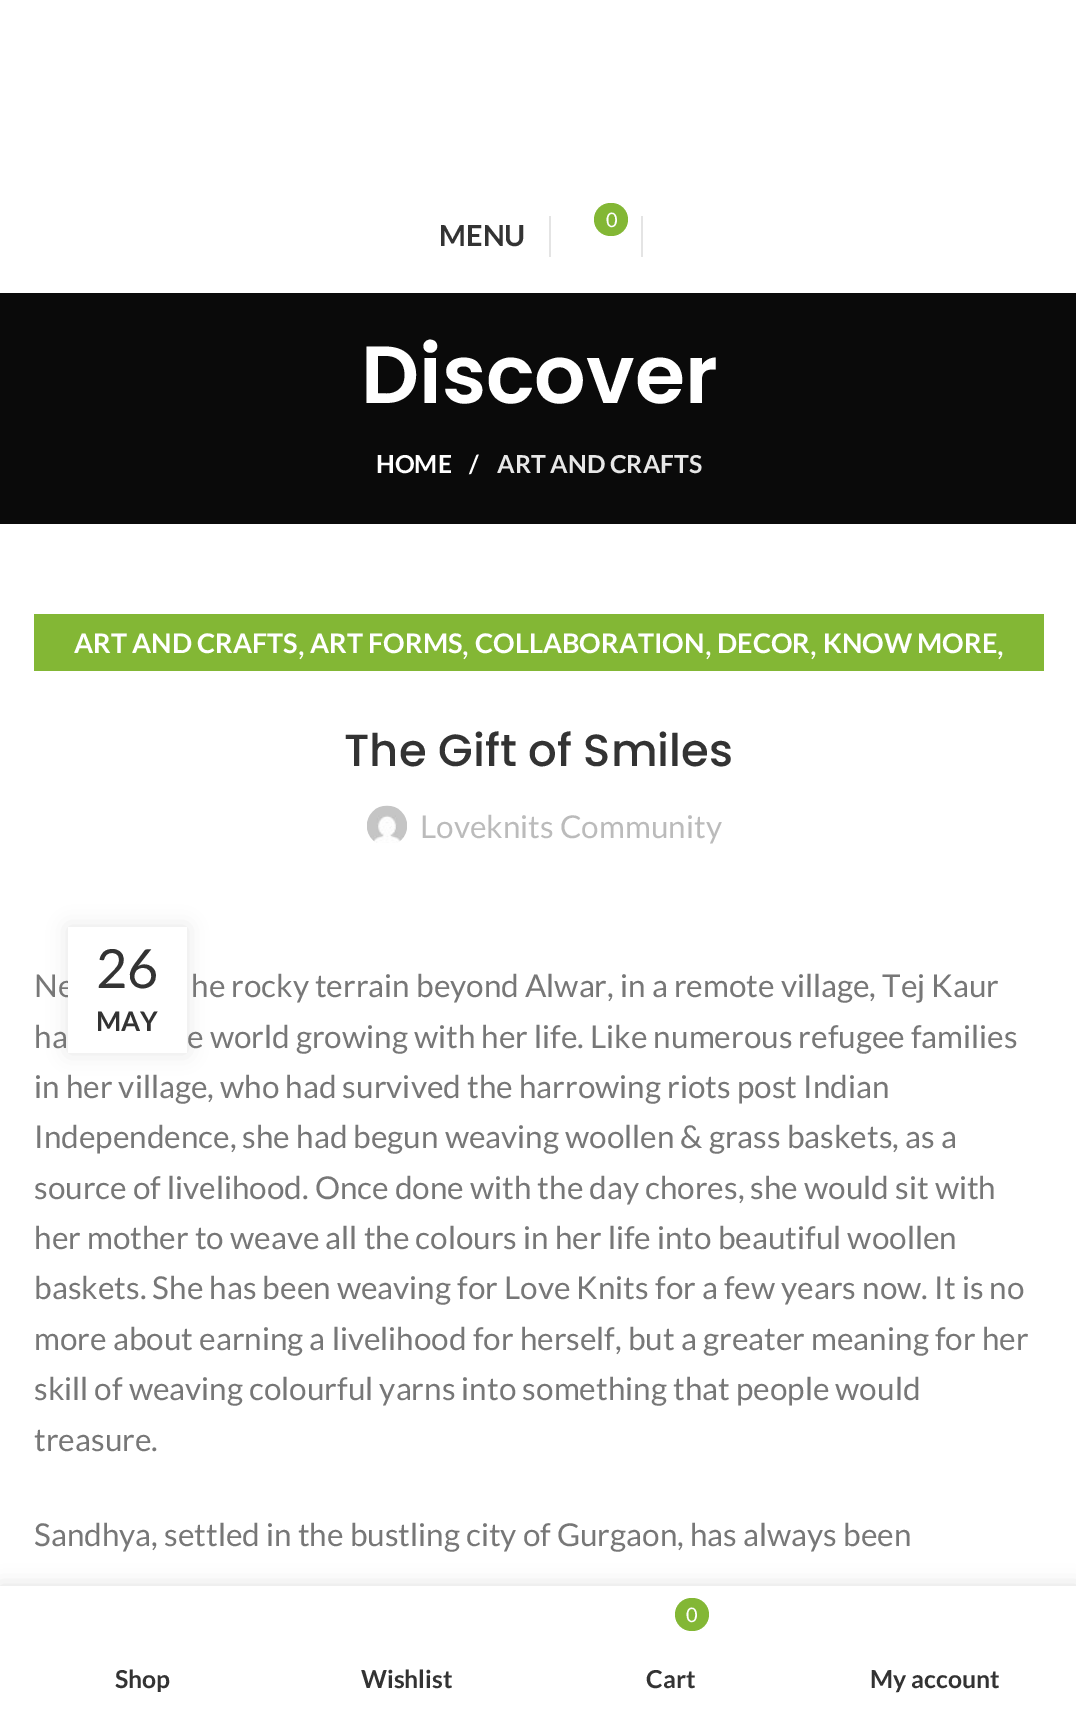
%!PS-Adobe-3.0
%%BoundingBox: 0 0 1076 1709
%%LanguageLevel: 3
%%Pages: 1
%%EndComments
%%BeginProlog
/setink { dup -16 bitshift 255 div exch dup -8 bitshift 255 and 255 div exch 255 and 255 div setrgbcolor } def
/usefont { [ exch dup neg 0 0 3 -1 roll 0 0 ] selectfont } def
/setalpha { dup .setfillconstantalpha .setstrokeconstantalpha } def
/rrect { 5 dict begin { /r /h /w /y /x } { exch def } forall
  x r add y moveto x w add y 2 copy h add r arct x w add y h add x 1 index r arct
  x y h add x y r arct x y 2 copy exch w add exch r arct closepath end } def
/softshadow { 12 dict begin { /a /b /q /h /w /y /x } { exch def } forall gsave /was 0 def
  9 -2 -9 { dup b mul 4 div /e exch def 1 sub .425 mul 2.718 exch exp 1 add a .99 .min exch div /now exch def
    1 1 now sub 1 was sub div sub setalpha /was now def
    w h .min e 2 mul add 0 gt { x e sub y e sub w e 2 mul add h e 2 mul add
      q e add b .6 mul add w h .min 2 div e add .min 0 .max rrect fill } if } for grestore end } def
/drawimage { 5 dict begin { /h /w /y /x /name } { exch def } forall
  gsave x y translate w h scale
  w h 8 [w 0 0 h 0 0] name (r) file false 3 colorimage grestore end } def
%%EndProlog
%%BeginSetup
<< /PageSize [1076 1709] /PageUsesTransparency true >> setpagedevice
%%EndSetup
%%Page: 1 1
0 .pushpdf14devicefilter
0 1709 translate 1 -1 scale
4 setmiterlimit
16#FFFFFF setink
0 0 1076 1709 rectfill
/Lato-Bold 29 usefont
16#333333 setink
439 246 moveto (MENU) show
16#E4E4E4 setink
549 216 2 41 rectfill
16#83B735 setink
594 203 34 33 16.5 rrect fill
/Lato-Regular 20 usefont
16#FFFFFF setink
606 227 moveto (0) show
16#E4E4E4 setink
641 216 2 41 rectfill
16#0A0A0A setink
0 293 1076 231 rectfill
/Poppins-SemiBold 81 usefont
16#FFFFFF setink
361 403 moveto (Discover) show
/Lato-Bold 24.75 usefont
376 473 moveto (HOME) show
469 473 moveto (/) show
16#E7E7E7 setink
497 473 moveto (ART AND CRAFTS) show
16#83B735 setink
34 614 1010 57 rectfill
/Lato-Bold 27 usefont
16#FFFFFF setink
[
    [(ART AND CRAFTS) 74 653]
    [(ART FORMS) 310 653]
    [(COLLABORATION) 475 653]
    [(DECOR) 717 653]
    [(KNOW MORE) 823 653]
] { aload pop moveto show } forall
/Lato-Regular 31.5 usefont
[
    [(,) 298 655]
    [(,) 462 655]
    [(,) 705 655]
    [(,) 810 655]
    [(,) 997 655]
] { aload pop moveto show } forall
/Poppins-Medium 45 usefont
16#333333 setink
344 766 moveto (The Gift of Smiles) show
(img1.raw) 367 805 40 38 drawimage
/Lato-Regular 31.5 usefont
16#BBBBBB setink
420 838 moveto (Loveknits Community) show
16#000000 setink
68 927 119 126 0 10 0.1 softshadow
16#777777 setink
34 997 moveto (Ne) show
16#FFFFFF setink
68 927 119 126 rectfill
/Lato-Regular 54 usefont
16#333333 setink
96 988 moveto (26) show
/Lato-Bold 27 usefont
96 1031 moveto (MAY) show
/Lato-Regular 31.5 usefont
16#777777 setink
[
    [(he rocky terrain beyond Alwar, in a remote village, Tej Kaur) 191 997]
    [(ha) 34 1048]
    [(e world growing with her life. Like numerous refugee families) 187 1048]
    [(in her village, who had survived the harrowing riots post Indian) 34 1098]
    [(Independence, she had begun weaving woollen & grass baskets, as a) 34 1148]
    [(source of livelihood. Once done with the day chores, she would sit with) 34 1199]
    [(her mother to weave all the colours in her life into beautiful woollen) 34 1249]
    [(baskets. She has been weaving for Love Knits for a few years now. It is no) 34 1299]
    [(more about earning a livelihood for herself, but a greater meaning for her) 34 1350]
    [(skill of weaving colourful yarns into something that people would) 34 1400]
    [(treasure.) 34 1451]
    [(Sandhya, settled in the bustling city of Gurgaon, has always been) 34 1546]
] { aload pop moveto show } forall
16#000000 setink
0 1586 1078 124 0 10 0.12 softshadow
16#FFFFFF setink
0 1586 1076 123 rectfill
gsave
34 1663 218 29 rectclip
/Lato-Bold 24.75 usefont
16#333333 setink
115 1688 moveto (Shop) show
grestore
/Lato-Bold 24.75 usefont
16#333333 setink
361 1688 moveto (Wishlist) show
16#83B735 setink
675 1598 34 33 16.5 rrect fill
/Lato-Regular 20 usefont
16#FFFFFF setink
686 1622 moveto (0) show
/Lato-Bold 24.75 usefont
16#333333 setink
646 1688 moveto (Cart) show
870 1688 moveto (My account) show
.poppdf14devicefilter showpage
%%EOF
